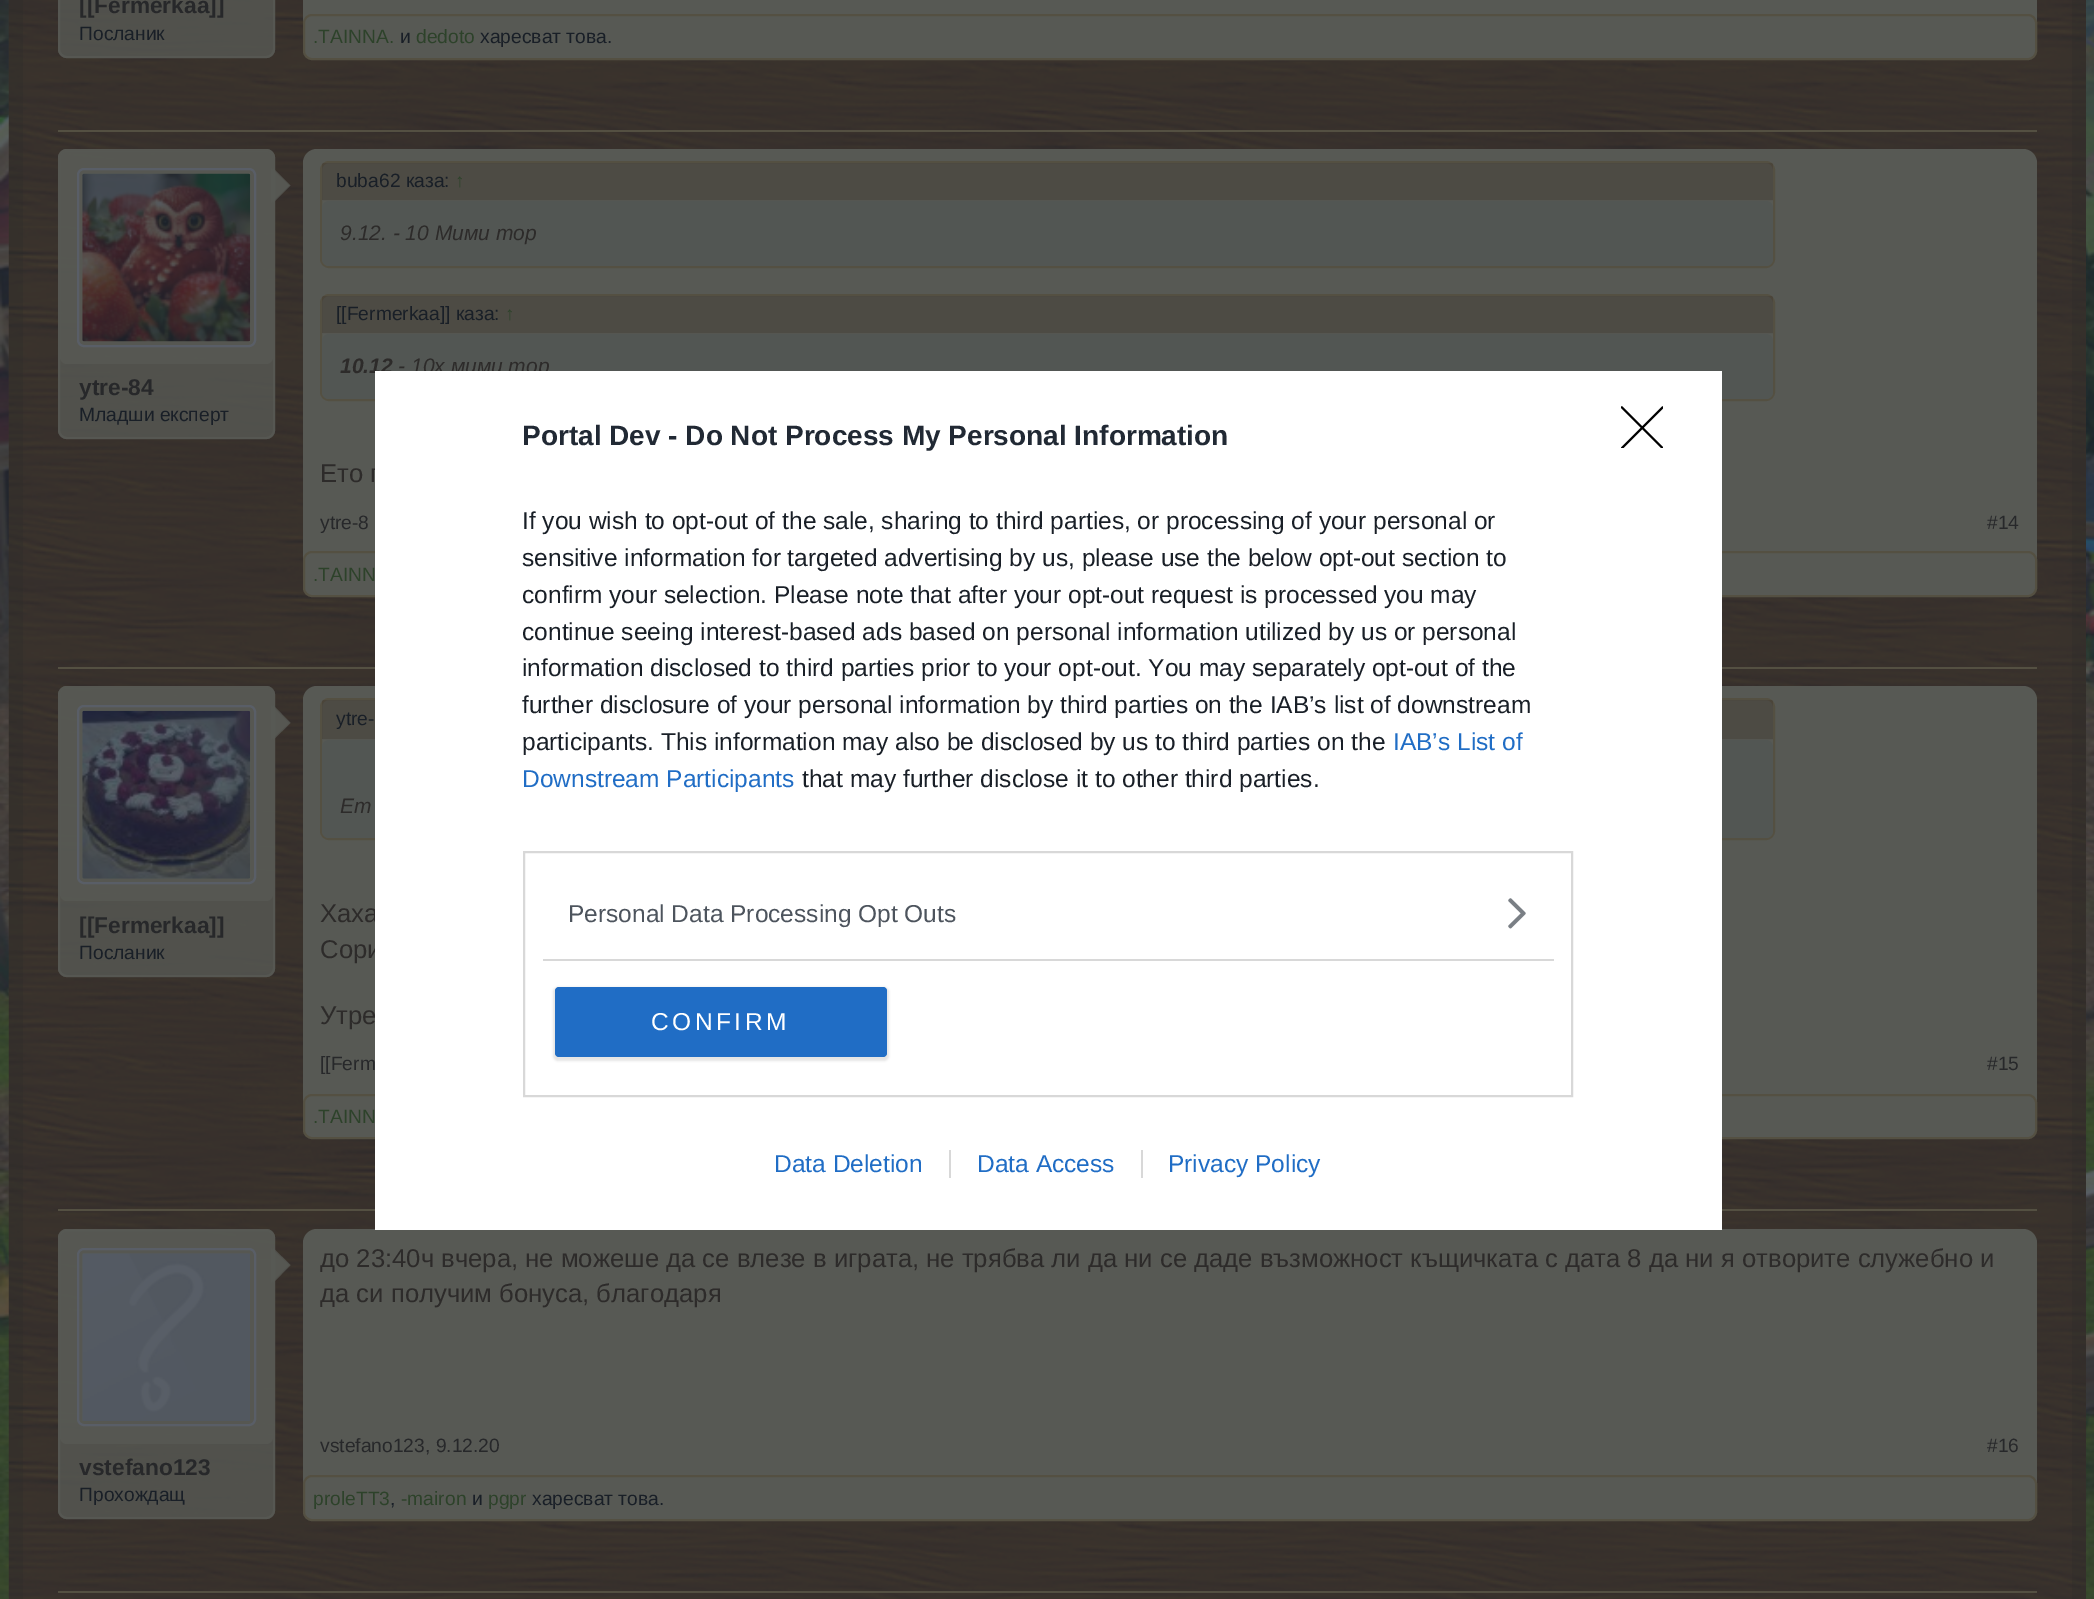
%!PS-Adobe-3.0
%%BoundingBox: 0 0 2094 1599
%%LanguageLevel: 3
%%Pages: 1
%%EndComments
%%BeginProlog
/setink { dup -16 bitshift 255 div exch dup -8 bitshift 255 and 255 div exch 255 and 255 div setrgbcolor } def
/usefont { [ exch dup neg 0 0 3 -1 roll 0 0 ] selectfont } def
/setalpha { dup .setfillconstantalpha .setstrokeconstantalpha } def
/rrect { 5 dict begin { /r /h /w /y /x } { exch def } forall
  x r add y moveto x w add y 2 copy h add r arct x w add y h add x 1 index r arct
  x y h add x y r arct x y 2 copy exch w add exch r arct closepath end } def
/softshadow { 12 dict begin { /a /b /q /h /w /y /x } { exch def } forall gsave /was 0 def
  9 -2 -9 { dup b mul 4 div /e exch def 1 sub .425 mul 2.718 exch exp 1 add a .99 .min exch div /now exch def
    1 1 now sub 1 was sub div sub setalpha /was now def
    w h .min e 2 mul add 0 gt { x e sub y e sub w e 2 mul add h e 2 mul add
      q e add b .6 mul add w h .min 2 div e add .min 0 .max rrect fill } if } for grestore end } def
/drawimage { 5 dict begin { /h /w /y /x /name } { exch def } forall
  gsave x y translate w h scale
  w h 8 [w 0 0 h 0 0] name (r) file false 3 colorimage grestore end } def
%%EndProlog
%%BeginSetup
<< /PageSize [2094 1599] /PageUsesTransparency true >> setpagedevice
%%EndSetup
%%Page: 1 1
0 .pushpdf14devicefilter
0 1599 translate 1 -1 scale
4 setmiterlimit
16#FFFFFF setink
0 0 2094 1599 rectfill
(img1.raw) 0 0 2094 1599 drawimage
(img2.raw) 8 0 2078 1599 drawimage
0.3 setalpha
16#2B2B28 setink
2072 0 14 1599 rectfill
9 0 14 1599 rectfill
0.8 setalpha
16#575954 setink
58 -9 217 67 9 rrect fill
2 setlinewidth
59 -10 215 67 8 rrect stroke
/LiberationSans-Bold 22.75 usefont
1 setalpha
16#27282A setink
79 13 moveto ([[Fermerkaa]]) show
/LiberationSans-Regular 19.25 usefont
16#191F27 setink
79 40 moveto (Посланик) show
16#575954 setink
303 -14 1734 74 14 rrect fill
0.8 setalpha
304 15 1732 44 8 rrect fill
1 setalpha
16#545042 setink
304 15 1732 44 8 rrect stroke
16#2D422A setink
313 43 moveto (.TAINNA.) show
16#191F27 setink
400 43 moveto (и) show
16#2D422A setink
416 43 moveto (dedoto) show
16#191F27 setink
480 43 moveto (харесват това.) show
16#545042 setink
58 130 1979 2 rectfill
0.8 setalpha
16#575954 setink
58 149 217 290 9 rrect fill
59 150 215 288 8 rrect stroke
60 151 213 213 7 rrect fill
1 setalpha
16#595E67 setink
78 169 177 177 6 rrect stroke
(img3.raw) 82 173 169 169 drawimage
0.8 setalpha
16#575954 setink
273 203 moveto 273 168 lineto 290.5 185.5 lineto closepath fill
271 203 moveto 271 168 lineto 289 185.5 lineto closepath fill
/LiberationSans-Bold 22.75 usefont
1 setalpha
16#27282A setink
79 395 moveto (ytre-84) show
/LiberationSans-Regular 19.25 usefont
16#191F27 setink
79 421 moveto (Младши експерт) show
16#575954 setink
303 149 1734 448 14 rrect fill
16#545042 setink
321 162 1453 105 8 rrect stroke
0.4 setalpha
16#3D352D setink
324 163 moveto 1771 163 lineto 1772 163 1773 164 1773 165 curveto 1773 201 lineto 322 201 lineto 322 165 lineto 322 164 323 163 324 163 curveto closepath fill
0.8 setalpha
16#575954 setink
322 200 1451 1 rectfill
1 setalpha
16#191F27 setink
336 187 moveto (buba62 каза:) show
16#2D422A setink
455 187 moveto (↑) show
16#525653 setink
322 201 1451 65 7 rrect fill
/LiberationSans-Italic 21 usefont
16#2D2B2A setink
340 240 moveto (9.12. - 10 Мими тор) show
16#545042 setink
321 295 1453 105 8 rrect stroke
0.4 setalpha
16#3D352D setink
324 296 moveto 1771 296 lineto 1772 296 1773 297 1773 298 curveto 1773 334 lineto 322 334 lineto 322 298 lineto 322 297 323 296 324 296 curveto closepath fill
0.8 setalpha
16#575954 setink
322 333 1451 1 rectfill
/LiberationSans-Regular 19.25 usefont
1 setalpha
16#191F27 setink
336 320 moveto ([[Fermerkaa]] каза:) show
16#2D422A setink
505 320 moveto (↑) show
16#525653 setink
322 334 1451 65 7 rrect fill
/LiberationSans-BoldItalic 21 usefont
16#2D2B2A setink
340 373 moveto (10.12) show
/LiberationSans-Italic 21 usefont
398 373 moveto (- 10x мими тор) show
/LiberationSans-Regular 25.67 usefont
320 482 moveto (Ето г) show
/LiberationSans-Regular 19.25 usefont
16#27282A setink
320 529 moveto (ytre-8) show
1987 529 moveto (#14) show
0.8 setalpha
16#575954 setink
304 552 1732 44 8 rrect fill
1 setalpha
16#545042 setink
304 552 1732 44 8 rrect stroke
16#2D422A setink
313 581 moveto (.TAINN) show
16#545042 setink
58 667 1979 2 rectfill
0.8 setalpha
16#575954 setink
58 686 217 291 9 rrect fill
59 687 215 289 8 rrect stroke
60 688 213 213 7 rrect fill
1 setalpha
16#595E67 setink
78 706 177 177 6 rrect stroke
(img4.raw) 82 710 169 169 drawimage
0.8 setalpha
16#575954 setink
273 740 moveto 273 705 lineto 290.5 723 lineto closepath fill
271 740 moveto 271 705 lineto 289 723 lineto closepath fill
/LiberationSans-Bold 22.75 usefont
1 setalpha
16#27282A setink
79 933 moveto ([[Fermerkaa]]) show
/LiberationSans-Regular 19.25 usefont
16#191F27 setink
79 959 moveto (Посланик) show
16#575954 setink
303 686 1734 453 14 rrect fill
16#545042 setink
321 699 1453 140 8 rrect stroke
0.4 setalpha
16#3D352D setink
324 700 moveto 1771 700 lineto 1772 700 1773 701 1773 702 curveto 1773 740 lineto 322 740 lineto 322 702 lineto 322 701 323 700 324 700 curveto closepath fill
0.8 setalpha
16#575954 setink
322 739 1451 1 rectfill
1 setalpha
16#191F27 setink
336 725 moveto (ytre-) show
16#525653 setink
322 740 1451 98 7 rrect fill
/LiberationSans-Italic 21 usefont
16#2D2B2A setink
340 813 moveto (Ет) show
/LiberationSans-Regular 25.67 usefont
[
    [(Хаха) 320 922]
    [(Сори) 320 958]
    [(Утре) 320 1024]
] { aload pop moveto show } forall
/LiberationSans-Regular 19.25 usefont
16#27282A setink
320 1070 moveto ([[Ferm) show
1987 1070 moveto (#15) show
0.8 setalpha
16#575954 setink
304 1095 1732 43 8 rrect fill
1 setalpha
16#545042 setink
304 1095 1732 43 8 rrect stroke
16#2D422A setink
313 1123 moveto (.TAINN) show
16#545042 setink
58 1209 1979 2 rectfill
0.8 setalpha
16#575954 setink
58 1229 217 290 9 rrect fill
59 1230 215 288 8 rrect stroke
60 1230 213 214 7 rrect fill
1 setalpha
16#595E67 setink
78 1249 177 176 6 rrect stroke
(img5.raw) 82 1253 168 168 drawimage
0.8 setalpha
16#575954 setink
273 1283 moveto 273 1248 lineto 290.5 1265 lineto closepath fill
271 1283 moveto 271 1248 lineto 289 1265 lineto closepath fill
/LiberationSans-Bold 22.75 usefont
1 setalpha
16#27282A setink
79 1475 moveto (vstefano123) show
/LiberationSans-Regular 19.25 usefont
16#191F27 setink
79 1501 moveto (Прохождащ) show
16#575954 setink
303 1229 1734 292 14 rrect fill
/LiberationSans-Regular 25.67 usefont
16#2D2B2A setink
320 1267 moveto (до 23:40ч вчера, не можеше да се влезе в играта, не трябва ли да ни се даде възможност къщичката с дата 8 да ни я отворите служебно и) show
320 1302 moveto (да си получим бонуса, благодаря) show
/LiberationSans-Regular 19.25 usefont
16#27282A setink
320 1452 moveto (vstefano123, 9.12.20) show
1987 1452 moveto (#16) show
0.8 setalpha
16#575954 setink
304 1476 1732 44 8 rrect fill
1 setalpha
16#545042 setink
304 1476 1732 44 8 rrect stroke
16#2D422A setink
313 1505 moveto (proleTT3) show
16#191F27 setink
390 1505 moveto (,) show
16#2D422A setink
401 1505 moveto (-mairon) show
16#191F27 setink
472 1505 moveto (и) show
16#2D422A setink
488 1505 moveto (pgpr) show
16#191F27 setink
532 1505 moveto (харесват това.) show
16#545042 setink
58 1591 1979 2 rectfill
16#FFFFFF setink
375 371 1347 859 rectfill
/LiberationSans-Bold 28 usefont
16#212934 setink
522 445 moveto (Portal Dev - Do Not Process My Personal Information) show
/LiberationSans-Regular 24.5 usefont
16#191F27 setink
[
    [(If you wish to opt-out of the sale, sharing to third parties, or processing of your personal or) 522 529]
    [(sensitive information for targeted advertising by us, please use the below opt-out section to) 522 566]
    [(confirm your selection. Please note that after your opt-out request is processed you may) 522 603]
    [(continue seeing interest-based ads based on personal information utilized by us or personal) 522 640]
    [(information disclosed to third parties prior to your opt-out. You may separately opt-out of the) 522 676]
    [(further disclosure of your personal information by third parties on the IAB’s list of downstream) 522 713]
    [(participants. This information may also be disclosed by us to third parties on the) 522 750]
] { aload pop moveto show } forall
16#206DC5 setink
1393 750 moveto (IAB’s List of) show
522 787 moveto (Downstream Participants) show
16#191F27 setink
802 787 moveto (that may further disclose it to other third parties.) show
16#D8D8D8 setink
524 852 1048 244 rectstroke
543 959 1011 2 rectfill
16#4D545D setink
568 922 moveto (Personal Data Processing Opt Outs) show
(img6.raw) 1508 898 18 31 drawimage
16#000000 setink
553 987 336 74 5 1 0.1 softshadow
16#206DC5 setink
555 987 332 70 4 rrect fill
16#FFFFFF setink
651 1030 moveto 3.5 0 (CONFIRM) ashow
gsave
1621 406 42 42 rectclip
16#000000 setink
1.8 setlinewidth
1 setlinecap
1 setlinejoin
1621.5 407 moveto 1663 448.5 lineto 1663 407 moveto 1621.5 448.5 lineto stroke
grestore
16#206DC5 setink
774 1172 moveto (Data Deletion) show
977 1172 moveto (Data Access) show
16#D8D8D8 setink
949 1150 2 28 rectfill
16#206DC5 setink
1168 1172 moveto (Privacy Policy) show
16#D8D8D8 setink
1141 1150 2 28 rectfill
.poppdf14devicefilter showpage
%%EOF
